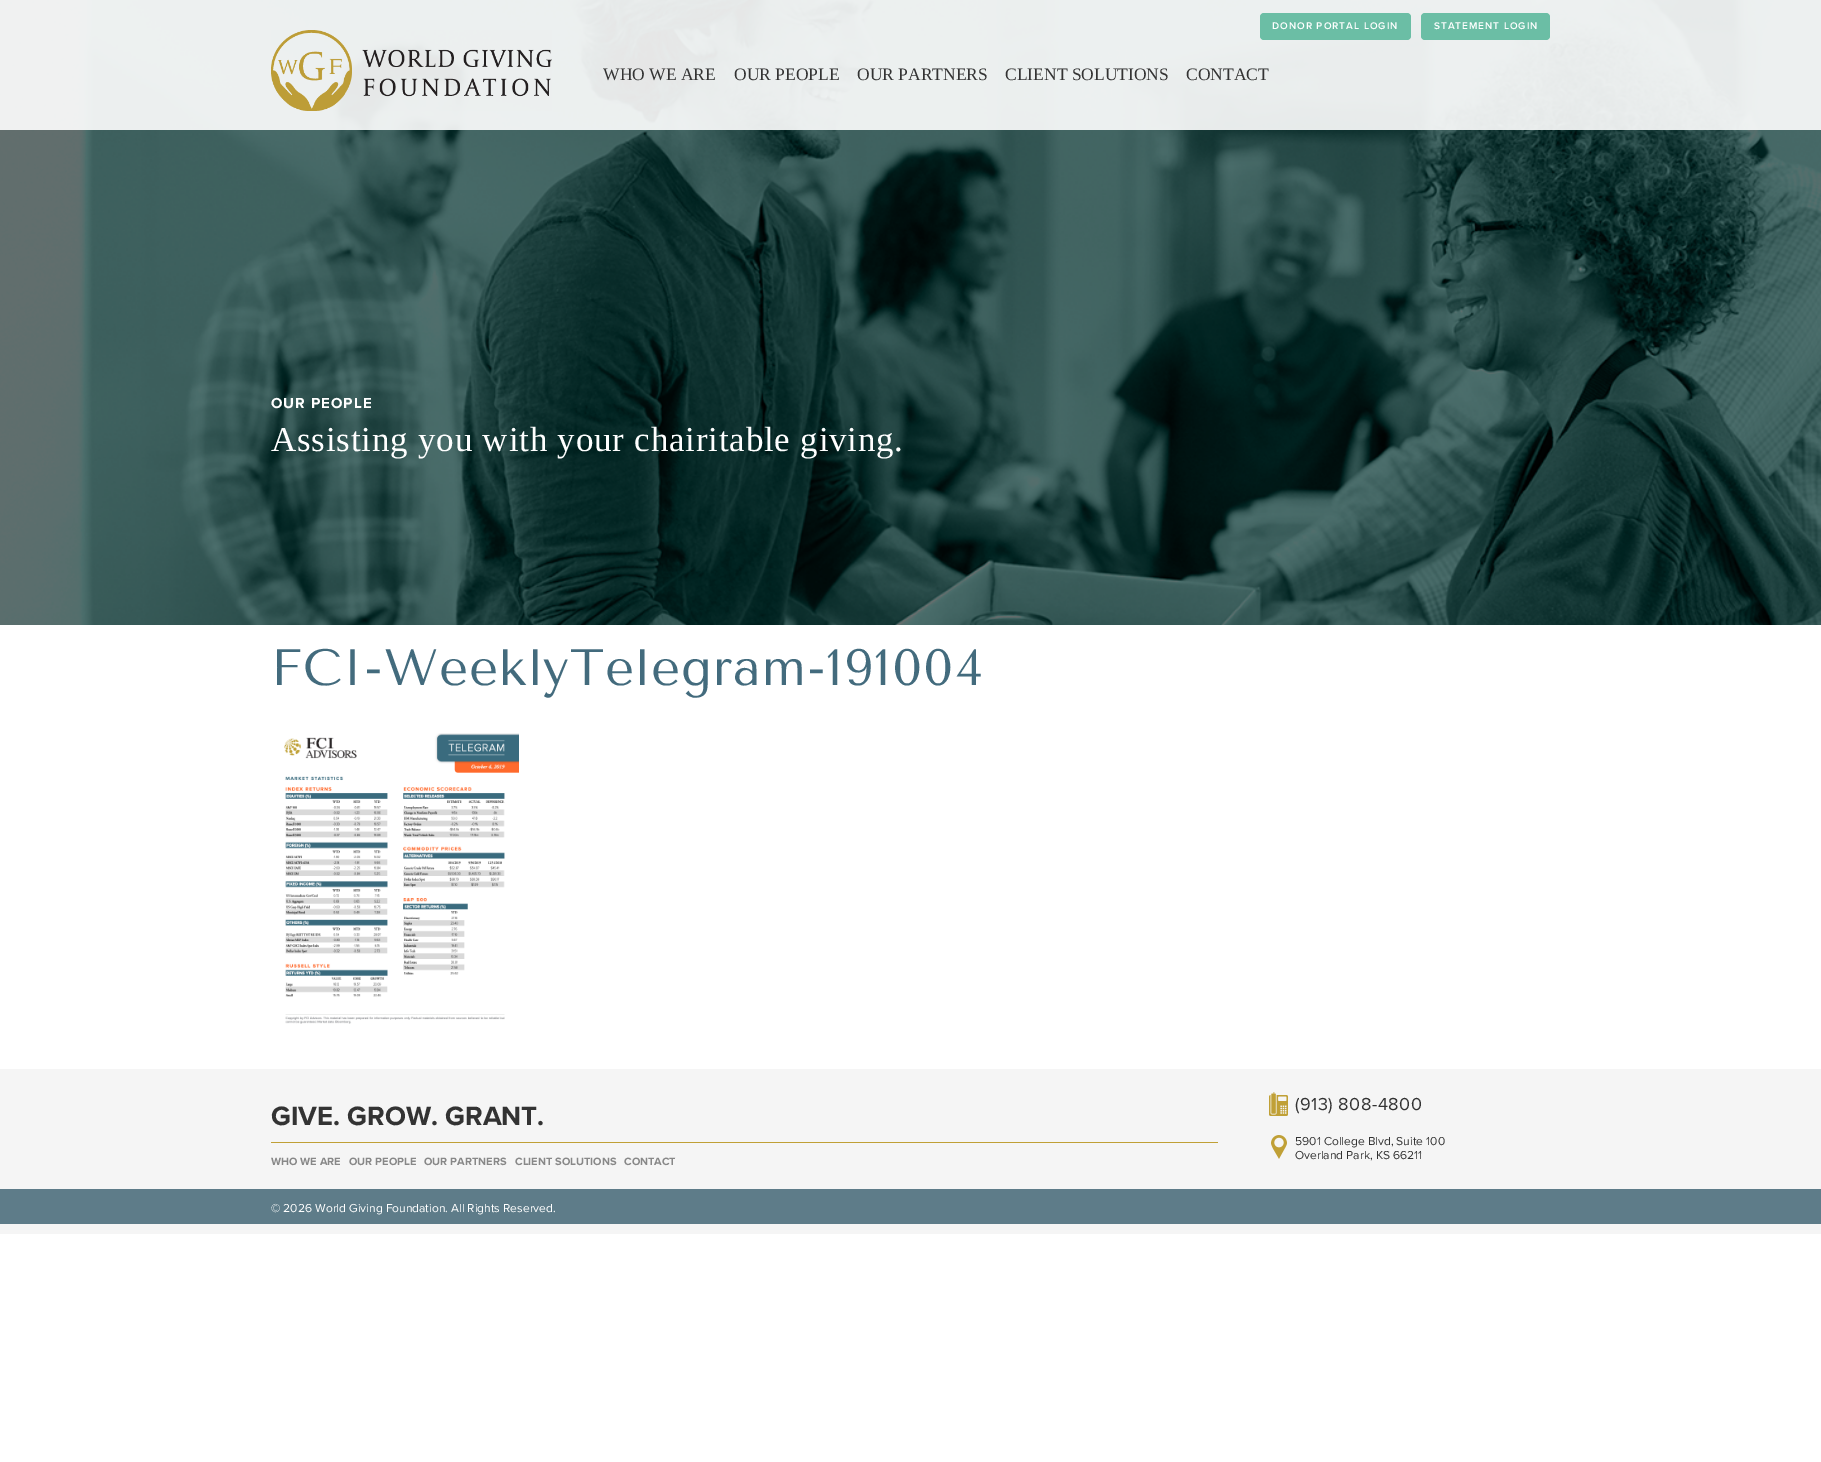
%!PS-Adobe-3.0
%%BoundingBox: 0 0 1821 1462
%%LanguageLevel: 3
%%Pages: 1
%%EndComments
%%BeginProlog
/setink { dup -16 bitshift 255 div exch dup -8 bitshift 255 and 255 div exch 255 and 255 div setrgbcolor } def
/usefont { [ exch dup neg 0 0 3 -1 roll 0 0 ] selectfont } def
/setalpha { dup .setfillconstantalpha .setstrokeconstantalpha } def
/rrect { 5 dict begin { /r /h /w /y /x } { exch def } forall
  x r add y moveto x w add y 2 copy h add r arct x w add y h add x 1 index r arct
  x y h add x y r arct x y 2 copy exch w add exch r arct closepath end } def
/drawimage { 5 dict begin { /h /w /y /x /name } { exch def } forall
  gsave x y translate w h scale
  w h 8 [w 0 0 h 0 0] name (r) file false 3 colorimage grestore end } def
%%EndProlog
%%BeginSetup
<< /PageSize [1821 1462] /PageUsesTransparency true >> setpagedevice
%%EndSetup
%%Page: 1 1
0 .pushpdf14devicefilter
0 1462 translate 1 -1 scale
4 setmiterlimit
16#FFFFFF setink
0 0 1821 1462 rectfill
(img2.raw) 0 0 1821 625 drawimage
0.9 setalpha
0 0 1821 130 rectfill
1 setalpha
(img1.raw) 271 30 281 81 drawimage
16#6BBEA5 setink
1260 13 151 27 4 rrect fill
/ProximaNova-SemiBold 10 usefont
16#FFFFFF setink
1272 29 moveto 1 0 (DONOR PORTAL LOGIN) ashow
16#6BBEA5 setink
1421 13 129 27 4 rrect fill
16#FFFFFF setink
1434 29 moveto 1 0 (STATEMENT LOGIN) ashow
/LiberationSerif-Regular 17.5 usefont
16#333333 setink
[
    [(WHO WE ARE) 603 80]
    [(OUR PEOPLE) 734 80]
    [(OUR PARTNERS) 857 80]
    [(CLIENT SOLUTIONS) 1005 80]
    [(CONTACT) 1186 80]
] { aload pop moveto show } forall
/ProximaNova-Bold 15 usefont
16#FFFFFF setink
271 408 moveto 1 0 (OUR PEOPLE) ashow
/LiberationSerif-Regular 35 usefont
271 451 moveto 0.8 0 (Assisting you with your chairitable giving.) ashow
/TenorSans-Regular 51 usefont
16#436B7D setink
271 685 moveto 1 0 (FCI-WeeklyTelegram-191004) ashow
(img3.raw) 284 733 235 291 drawimage
16#F5F5F5 setink
0 1069 1821 165 rectfill
/ProximaNova-Bold 27.5 usefont
16#333333 setink
271 1125 moveto (GIVE. GROW. GRANT.) show
16#C0A036 setink
271 1142 947 1 rectfill
/ProximaNova-Bold 11 usefont
16#888888 setink
[
    [(WHO WE ARE) 271 1165]
    [(OUR PEOPLE) 349 1165]
    [(OUR PARTNERS) 424 1165]
    [(CLIENT SOLUTIONS) 515 1165]
    [(CONTACT) 624 1165]
] { aload pop moveto show } forall
(img4.raw) 1269 1092 19 24 drawimage
/ProximaNova-Regular 18 usefont
16#333333 setink
1295 1110 moveto 0.5 0 (\(913\) 808-4800) ashow
(img5.raw) 1271 1135 16 24 drawimage
/ProximaNova-Regular 12 usefont
1295 1145 moveto (5901 College Blvd, Suite 100) show
1295 1159 moveto (Overland Park, KS 66211) show
16#5E7C89 setink
0 1189 1821 35 rectfill
16#FFFFFF setink
271 1212 moveto (© 2026 World Giving Foundation. All Rights Reserved.) show
.poppdf14devicefilter showpage
%%EOF
